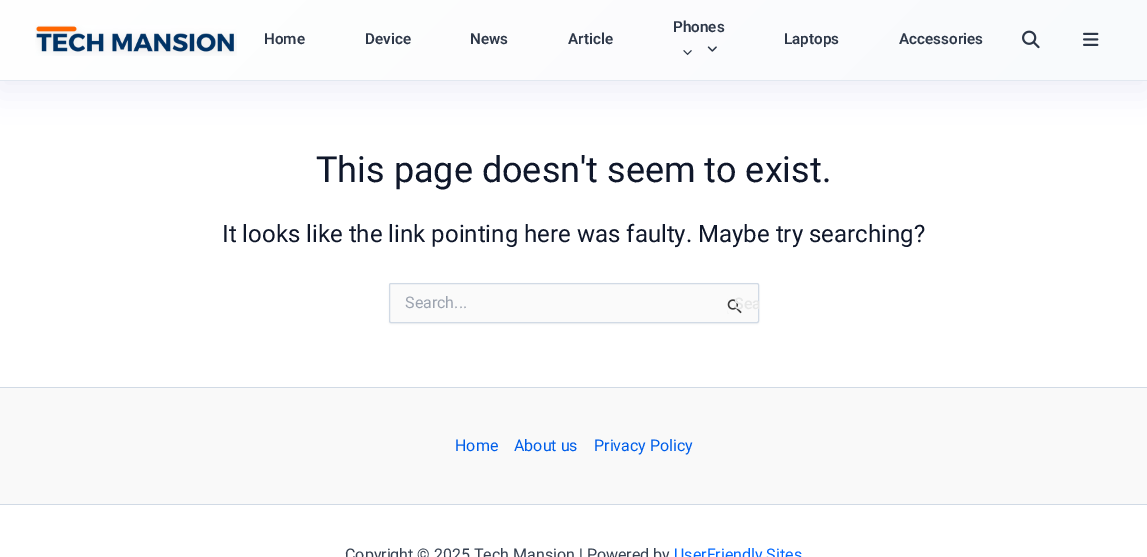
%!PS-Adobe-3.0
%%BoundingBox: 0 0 1147 557
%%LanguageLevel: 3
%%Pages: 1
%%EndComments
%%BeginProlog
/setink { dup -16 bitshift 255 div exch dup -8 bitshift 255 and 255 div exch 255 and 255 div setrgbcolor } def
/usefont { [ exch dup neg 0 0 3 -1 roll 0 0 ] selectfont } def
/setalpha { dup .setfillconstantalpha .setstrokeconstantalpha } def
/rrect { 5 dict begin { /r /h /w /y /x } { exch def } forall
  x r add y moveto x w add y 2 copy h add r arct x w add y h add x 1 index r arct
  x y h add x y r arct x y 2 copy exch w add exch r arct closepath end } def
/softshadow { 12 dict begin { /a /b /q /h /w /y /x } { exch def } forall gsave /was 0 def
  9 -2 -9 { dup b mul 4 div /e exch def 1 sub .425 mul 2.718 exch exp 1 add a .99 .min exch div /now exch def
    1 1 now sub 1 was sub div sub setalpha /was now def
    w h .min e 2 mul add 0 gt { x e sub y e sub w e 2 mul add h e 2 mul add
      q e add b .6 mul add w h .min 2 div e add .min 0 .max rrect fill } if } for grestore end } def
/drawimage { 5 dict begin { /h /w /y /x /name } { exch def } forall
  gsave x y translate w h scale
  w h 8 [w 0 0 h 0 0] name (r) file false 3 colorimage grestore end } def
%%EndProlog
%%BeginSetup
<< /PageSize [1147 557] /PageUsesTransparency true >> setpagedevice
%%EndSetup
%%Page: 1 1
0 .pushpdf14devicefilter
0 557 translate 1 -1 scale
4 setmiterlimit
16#FFFFFF setink
0 0 1147 557 rectfill
16#1F2687 setink
0 8 1147 81 0 16 0.08 softshadow
gsave 0 0 moveto 1147 0 lineto 1147 80 lineto 0 80 lineto closepath clip newpath
<< /ShadingType 2 /ColorSpace /DeviceRGB /Coords [267 -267 880 347] /Extend [true true] /Function << /FunctionType 2 /Domain [0 1] /C0 [1 1 1] /C1 [0.973 0.98 0.988] /N 1 >> >> shfill grestore
16#E2E8F0 setink
0 80 1147 1 rectfill
(img1.raw) 35 25 202 31 drawimage
/Roboto-SemiBold 15.25 usefont
16#2D3748 setink
673 32 moveto (Phones) show
(img2.raw) 707 46 10 6 drawimage
(img3.raw) 683 50 9 6 drawimage
[
    [(Home) 264 44]
    [(Device) 365 44]
    [(News) 470 44]
    [(Article) 568 44]
    [(Laptops) 784 44]
    [(Accessories) 899 44]
] { aload pop moveto show } forall
(img4.raw) 1022 30 18 19 drawimage
(img5.raw) 1083 32 16 14 drawimage
/Roboto-Regular 36 usefont
16#0F172A setink
316 182 moveto (This page doesn't seem to exist.) show
/Roboto-Regular 24 usefont
222 242 moveto (It looks like the link pointing here was faulty. Maybe try searching?) show
16#000000 setink
389 284 370 40 2 1 0.05 softshadow
16#FAFAFA setink
389.5 283.5 369 39 1.5 rrect gsave fill grestore
16#D1DAE5 setink
stroke
/Roboto-Regular 16 usefont
16#9CA3AF setink
405 308 moveto (Search...) show
(img6.raw) 727 299 15 15 drawimage
gsave
714 283 45 42 2 rrect clip newpath
/Roboto-Medium 16 usefont
16#E6E7E7 setink
734 309 moveto (Sea) show
grestore
16#F9F9F9 setink
0 388 1147 116 rectfill
16#D1DAE5 setink
0 387 1147 1 rectfill
16#005EE9 setink
[
    [(Home) 455 451]
    [(About us) 514 451]
    [(Privacy Policy) 594 451]
] { aload pop moveto show } forall
16#D1DAE5 setink
0 504 1147 1 rectfill
16#364151 setink
345 560 moveto (Copyright © 2025 Tech Mansion | Powered by) show
16#0067FF setink
674 560 moveto (UserFriendly Sites) show
.poppdf14devicefilter showpage
%%EOF
